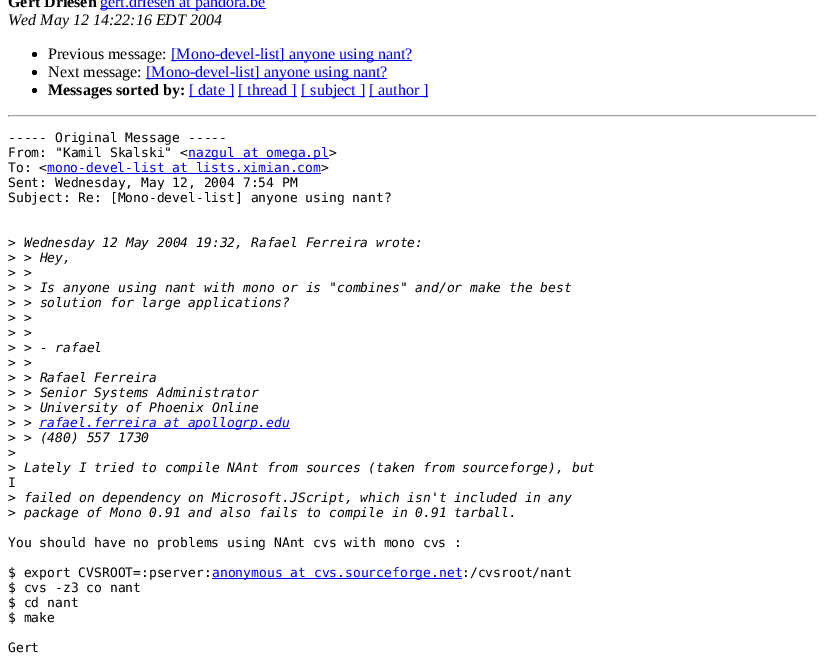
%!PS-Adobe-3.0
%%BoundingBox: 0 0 825 664
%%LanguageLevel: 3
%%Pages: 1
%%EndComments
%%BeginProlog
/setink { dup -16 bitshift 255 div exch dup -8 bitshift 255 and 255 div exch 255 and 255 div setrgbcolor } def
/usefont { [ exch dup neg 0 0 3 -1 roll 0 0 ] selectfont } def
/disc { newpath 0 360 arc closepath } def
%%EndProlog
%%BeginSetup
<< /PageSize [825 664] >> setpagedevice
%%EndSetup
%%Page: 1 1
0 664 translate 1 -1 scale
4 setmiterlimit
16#FFFFFF setink
0 0 825 664 rectfill
/LiberationSerif-Bold 16 usefont
16#000000 setink
8 7 moveto (Gert Driesen) show
16#0000EE setink
100 8 166 1 rectfill
/LiberationSerif-Regular 16 usefont
100 7 moveto (gert.driesen at pandora.be) show
/LiberationSerif-Italic 16 usefont
16#000000 setink
8 25 moveto (Wed May 12 14:22:16 EDT 2004) show
34.5 54.5 2.5 disc fill
/LiberationSerif-Regular 16 usefont
48 59 moveto (Previous message:) show
16#0000EE setink
171 60 241 1 rectfill
171 59 moveto ([Mono-devel-list] anyone using nant?) show
16#000000 setink
34.5 72.5 2.5 disc fill
48 77 moveto (Next message:) show
16#0000EE setink
146 78 241 1 rectfill
146 77 moveto ([Mono-devel-list] anyone using nant?) show
16#000000 setink
34.5 90.5 2.5 disc fill
/LiberationSerif-Bold 16 usefont
48 95 moveto (Messages sorted by:) show
16#0000EE setink
189 96 45 1 rectfill
/LiberationSerif-Regular 16 usefont
189 95 moveto ([ date ]) show
238 96 59 1 rectfill
238 95 moveto ([ thread ]) show
301 96 64 1 rectfill
301 95 moveto ([ subject ]) show
369 96 59 1 rectfill
369 95 moveto ([ author ]) show
[
    [8 115 809 1 16#9F9F9F]
    [816 115 1 2 16#EEEEEE]
    [8 116 809 1 16#EEEEEE]
    [8 115 1 2 16#9F9F9F]
] { aload pop setink rectfill } forall
/DejaVuSansMono-Regular 13 usefont
16#000000 setink
8 142 moveto (----- Original Message -----) show
8 157 moveto (From: "Kamil Skalski" <) show
16#0000EE setink
188 158 141 1 rectfill
188 157 moveto (nazgul at omega.pl) show
16#000000 setink
329 157 moveto (>) show
8 172 moveto (To: <) show
16#0000EE setink
47 172 moveto (mono-devel-list at lists.ximian.com) show
47 173 274 1 rectfill
16#000000 setink
[
    [(>) 321 172]
    [(Sent: Wednesday, May 12, 2004 7:54 PM) 8 187]
    [(Subject: Re: [Mono-devel-list] anyone using nant?) 8 202]
    [(>) 8 247]
] { aload pop moveto show } forall
/DejaVuSansMono-Italic 13 usefont
24 247 moveto (Wednesday 12 May 2004 19:32, Rafael Ferreira wrote:) show
/DejaVuSansMono-Regular 13 usefont
8 262 moveto (>) show
/DejaVuSansMono-Italic 13 usefont
24 262 moveto (> Hey,) show
/DejaVuSansMono-Regular 13 usefont
8 277 moveto (>) show
/DejaVuSansMono-Italic 13 usefont
24 277 moveto (>) show
/DejaVuSansMono-Regular 13 usefont
8 292 moveto (>) show
/DejaVuSansMono-Italic 13 usefont
24 292 moveto (> Is anyone using nant with mono or is "combines" and/or make the best) show
/DejaVuSansMono-Regular 13 usefont
8 307 moveto (>) show
/DejaVuSansMono-Italic 13 usefont
24 307 moveto (> solution for large applications?) show
/DejaVuSansMono-Regular 13 usefont
8 322 moveto (>) show
/DejaVuSansMono-Italic 13 usefont
24 322 moveto (>) show
/DejaVuSansMono-Regular 13 usefont
8 337 moveto (>) show
/DejaVuSansMono-Italic 13 usefont
24 337 moveto (>) show
/DejaVuSansMono-Regular 13 usefont
8 352 moveto (>) show
/DejaVuSansMono-Italic 13 usefont
24 352 moveto (> - rafael) show
/DejaVuSansMono-Regular 13 usefont
8 367 moveto (>) show
/DejaVuSansMono-Italic 13 usefont
24 367 moveto (>) show
/DejaVuSansMono-Regular 13 usefont
8 382 moveto (>) show
/DejaVuSansMono-Italic 13 usefont
24 382 moveto (> Rafael Ferreira) show
/DejaVuSansMono-Regular 13 usefont
8 397 moveto (>) show
/DejaVuSansMono-Italic 13 usefont
24 397 moveto (> Senior Systems Administrator) show
/DejaVuSansMono-Regular 13 usefont
8 412 moveto (>) show
/DejaVuSansMono-Italic 13 usefont
24 412 moveto (> University of Phoenix Online) show
/DejaVuSansMono-Regular 13 usefont
8 427 moveto (>) show
/DejaVuSansMono-Italic 13 usefont
24 427 moveto (>) show
16#0000EE setink
39 428 251 1 rectfill
39 427 moveto (rafael.ferreira at apollogrp.edu) show
/DejaVuSansMono-Regular 13 usefont
16#000000 setink
8 442 moveto (>) show
/DejaVuSansMono-Italic 13 usefont
24 442 moveto (> \(480\) 557 1730) show
/DejaVuSansMono-Regular 13 usefont
8 457 moveto (>) show
8 472 moveto (>) show
/DejaVuSansMono-Italic 13 usefont
24 472 moveto (Lately I tried to compile NAnt from sources \(taken from sourceforge\), but) show
/DejaVuSansMono-Regular 13 usefont
8 487 moveto (I) show
8 502 moveto (>) show
/DejaVuSansMono-Italic 13 usefont
24 502 moveto (failed on dependency on Microsoft.JScript, which isn't included in any) show
/DejaVuSansMono-Regular 13 usefont
8 517 moveto (>) show
/DejaVuSansMono-Italic 13 usefont
24 517 moveto (package of Mono 0.91 and also fails to compile in 0.91 tarball.) show
/DejaVuSansMono-Regular 13 usefont
8 547 moveto (You should have no problems using NAnt cvs with mono cvs :) show
8 577 moveto ($ export CVSROOT=:pserver:) show
16#0000EE setink
212 578 250 1 rectfill
212 577 moveto (anonymous at cvs.sourceforge.net) show
16#000000 setink
[
    [(:/cvsroot/nant) 462 577]
    [($ cvs -z3 co nant) 8 592]
    [($ cd nant) 8 607]
    [($ make) 8 622]
    [(Gert) 8 652]
] { aload pop moveto show } forall
showpage
%%EOF
